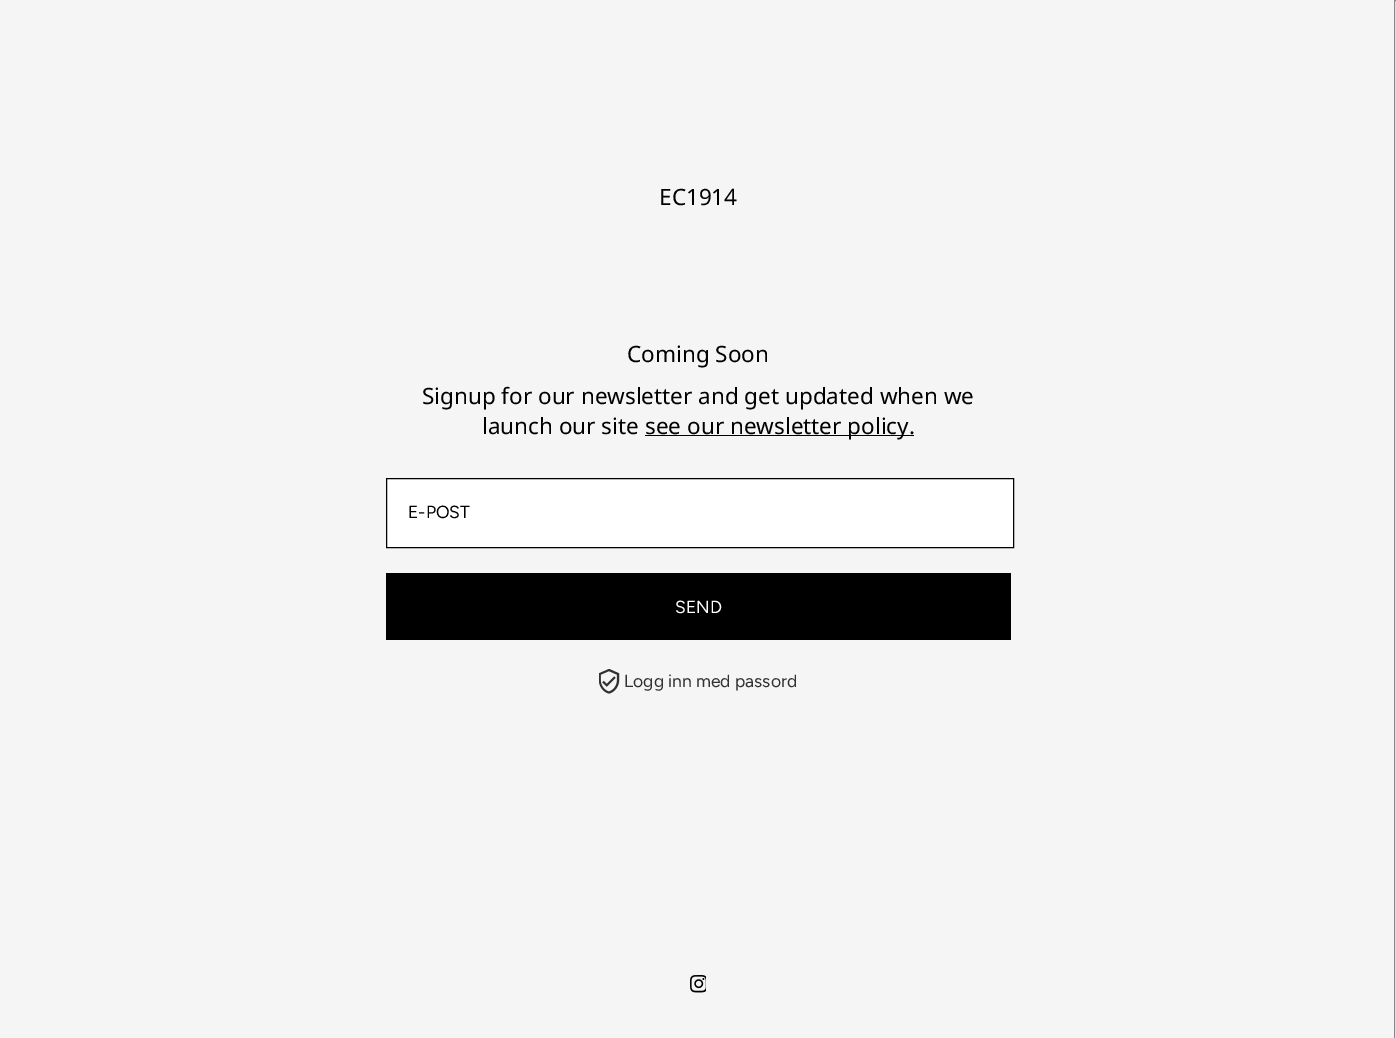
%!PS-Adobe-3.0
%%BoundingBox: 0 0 1396 1038
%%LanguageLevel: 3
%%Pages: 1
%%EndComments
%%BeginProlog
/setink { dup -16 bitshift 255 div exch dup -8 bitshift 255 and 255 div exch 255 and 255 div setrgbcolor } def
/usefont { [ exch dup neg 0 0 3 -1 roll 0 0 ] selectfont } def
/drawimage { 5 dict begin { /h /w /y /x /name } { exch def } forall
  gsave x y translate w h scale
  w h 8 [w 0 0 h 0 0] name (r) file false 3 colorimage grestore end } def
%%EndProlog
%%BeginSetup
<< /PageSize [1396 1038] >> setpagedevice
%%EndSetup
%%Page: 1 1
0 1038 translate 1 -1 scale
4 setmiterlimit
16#F5F5F5 setink
0 0 1396 1038 rectfill
/NotoSans-Regular 22.5 usefont
16#000000 setink
[
    [(EC1914) 659 205]
    [(Coming Soon) 627 362]
    [(Signup for our newsletter and get updated when we) 422 404]
    [(launch our site) 482 434]
] { aload pop moveto show } forall
645 435 269 1 rectfill
645 434 moveto (see our newsletter policy.) show
16#FFFFFF setink
386.5 478.5 moveto 1013.5 478.5 lineto 1013.5 547.5 lineto 386.5 547.5 lineto closepath gsave fill grestore
16#000000 setink
stroke
/Figtree-Regular 17.5 usefont
408 518 moveto (E-POST) show
386 573 625 67 rectfill
16#FFFFFF setink
675 613 moveto (SEND) show
(img1.raw) 599 669 21 25 drawimage
16#313131 setink
624 687 moveto (Logg inn med passord) show
(img2.raw) 690 975 16 18 drawimage
16#FFFFFF setink
1394.5 0.5 moveto 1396.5 0.5 lineto 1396.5 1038.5 lineto 1394.5 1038.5 lineto closepath gsave fill grestore
16#888888 setink
stroke
showpage
%%EOF
